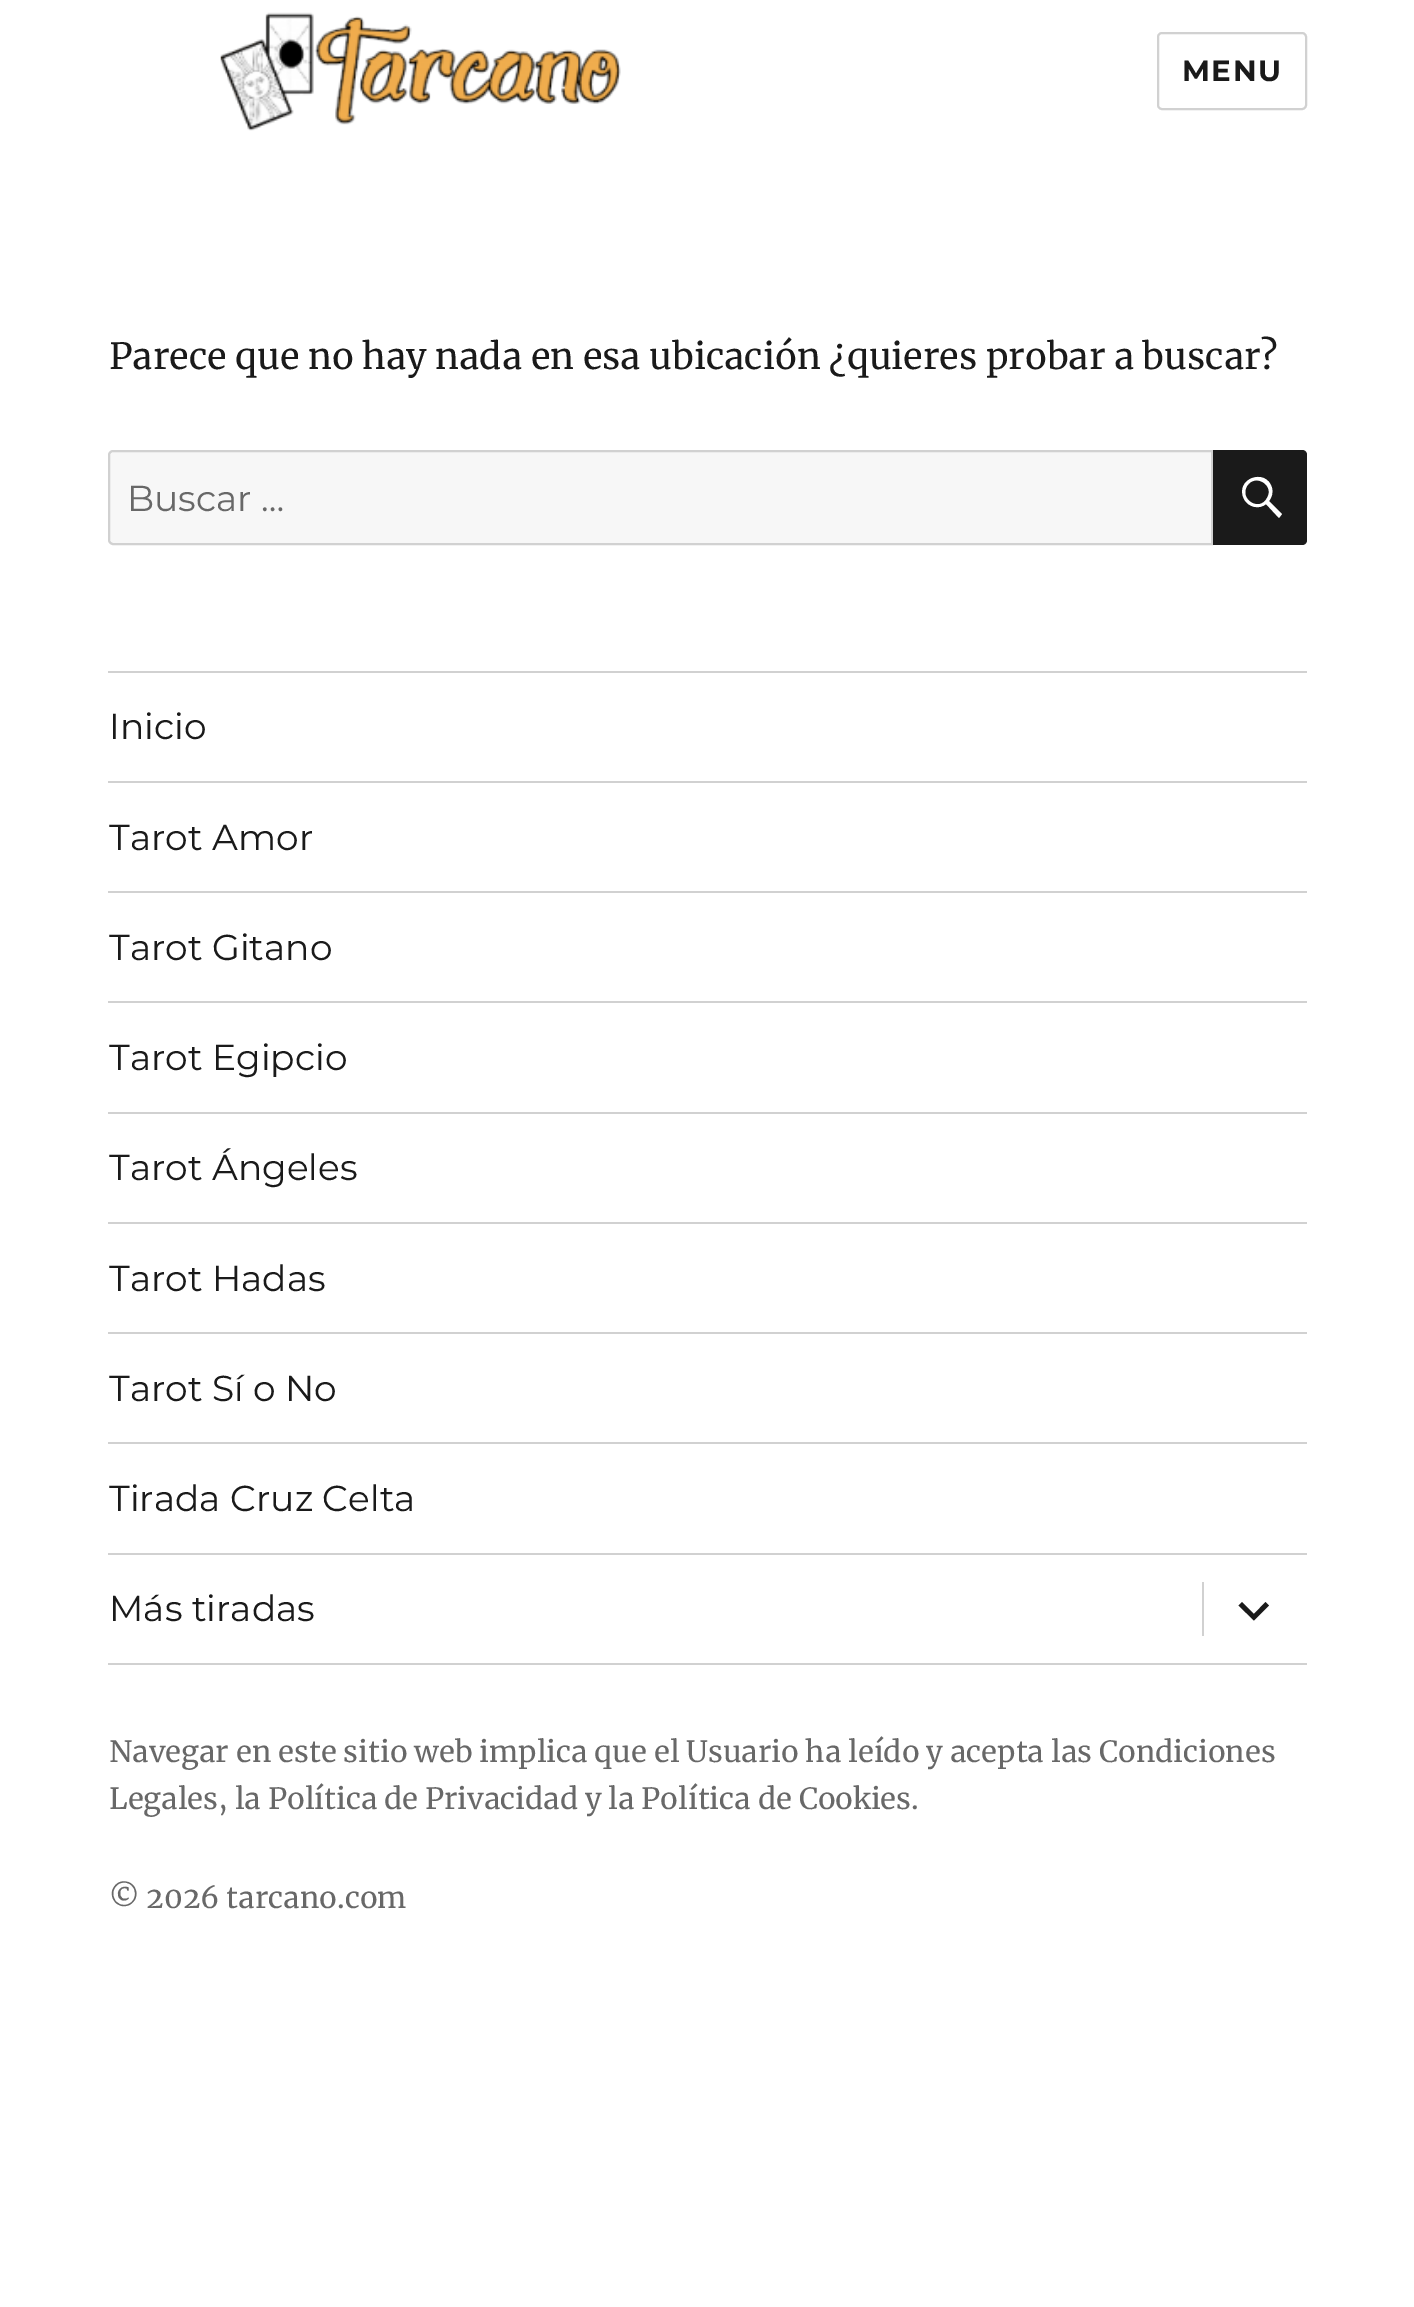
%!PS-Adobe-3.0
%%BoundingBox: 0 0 1414 2307
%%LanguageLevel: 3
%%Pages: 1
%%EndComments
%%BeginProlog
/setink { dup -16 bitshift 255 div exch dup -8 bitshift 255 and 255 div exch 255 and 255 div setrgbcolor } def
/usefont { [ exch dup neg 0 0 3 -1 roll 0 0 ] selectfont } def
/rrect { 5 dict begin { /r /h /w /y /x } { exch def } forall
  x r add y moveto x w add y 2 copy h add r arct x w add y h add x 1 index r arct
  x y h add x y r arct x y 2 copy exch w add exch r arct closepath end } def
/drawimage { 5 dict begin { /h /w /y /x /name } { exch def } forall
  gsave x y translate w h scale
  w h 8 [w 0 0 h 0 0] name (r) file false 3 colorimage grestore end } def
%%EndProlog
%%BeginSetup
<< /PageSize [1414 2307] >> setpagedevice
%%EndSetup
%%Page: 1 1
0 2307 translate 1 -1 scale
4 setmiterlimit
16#FFFFFF setink
0 0 1414 2307 rectfill
(img1.raw) 220 12 401 119 drawimage
16#D1D1D1 setink
2 setlinewidth
1158 33 148 76 4 rrect stroke
/Montserrat-Thin 29.25 usefont
16#1A1A1A setink
1182 81 moveto 1.5 0 (MENU) ashow
/Merriweather-Regular 36 usefont
109 369 moveto (Parece que no hay nada en esa ubicación ¿quieres probar a buscar?) show
16#F7F7F7 setink
113 451 moveto 1212 451 lineto 1212 544 lineto 113 544 lineto 111 544 109 542 109 540 curveto 109 455 lineto 109 453 111 451 113 451 curveto closepath gsave fill grestore
16#D1D1D1 setink
stroke
/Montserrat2-Thin 36 usefont
16#686868 setink
127 511 moveto (Buscar …) show
16#1A1A1A setink
1213 450 moveto 1302 450 lineto 1305 450 1307 452 1307 455 curveto 1307 540 lineto 1307 543 1305 545 1302 545 curveto 1213 545 lineto closepath fill
16#FFFFFF setink
1282 514 moveto 1279 518 lineto 1266 504 lineto 1259 510 1248 507 1244 499 curveto 1234 479 1266 467 1272 488 curveto 1273 493 1272 497 1269 501 curveto closepath 1247 486 moveto 1239 500 1260 512 1267 498 curveto 1275 485 1255 473 1247 486 curveto closepath fill
16#D1D1D1 setink
108 1663 1199 2 rectfill
108 671 1199 2 rectfill
16#1A1A1A setink
109 739 moveto (Inicio) show
16#D1D1D1 setink
108 781 1199 2 rectfill
16#1A1A1A setink
109 850 moveto (Tarot Amor) show
16#D1D1D1 setink
108 891 1199 2 rectfill
16#1A1A1A setink
109 960 moveto (Tarot Gitano) show
16#D1D1D1 setink
108 1001 1199 2 rectfill
16#1A1A1A setink
109 1070 moveto (Tarot Egipcio) show
16#D1D1D1 setink
108 1112 1199 2 rectfill
16#1A1A1A setink
109 1180 moveto (Tarot Ángeles) show
16#D1D1D1 setink
108 1222 1199 2 rectfill
16#1A1A1A setink
109 1291 moveto (Tarot Hadas) show
16#D1D1D1 setink
108 1332 1199 2 rectfill
16#1A1A1A setink
109 1401 moveto (Tarot Sí o No) show
16#D1D1D1 setink
108 1442 1199 2 rectfill
16#1A1A1A setink
109 1511 moveto (Tirada Cruz Celta) show
16#D1D1D1 setink
108 1553 1199 2 rectfill
16#1A1A1A setink
109 1621 moveto (Más tiradas) show
16#D1D1D1 setink
1202 1582 2 54 rectfill
16#1A1A1A setink
1265.5 1602 moveto 1269 1605.5 lineto 1254 1620.5 lineto 1238.5 1605.5 lineto 1242 1602 lineto 1254 1614 lineto closepath fill
/Merriweather-Regular 29.25 usefont
16#686868 setink
[
    [(Navegar en este sitio web implica que el Usuario ha leído y acepta las Condiciones) 109 1762]
    [(Legales, la Política de Privacidad y la Política de Cookies.) 109 1809]
    [(© 2026 tarcano.com) 109 1908]
] { aload pop moveto show } forall
showpage
%%EOF
